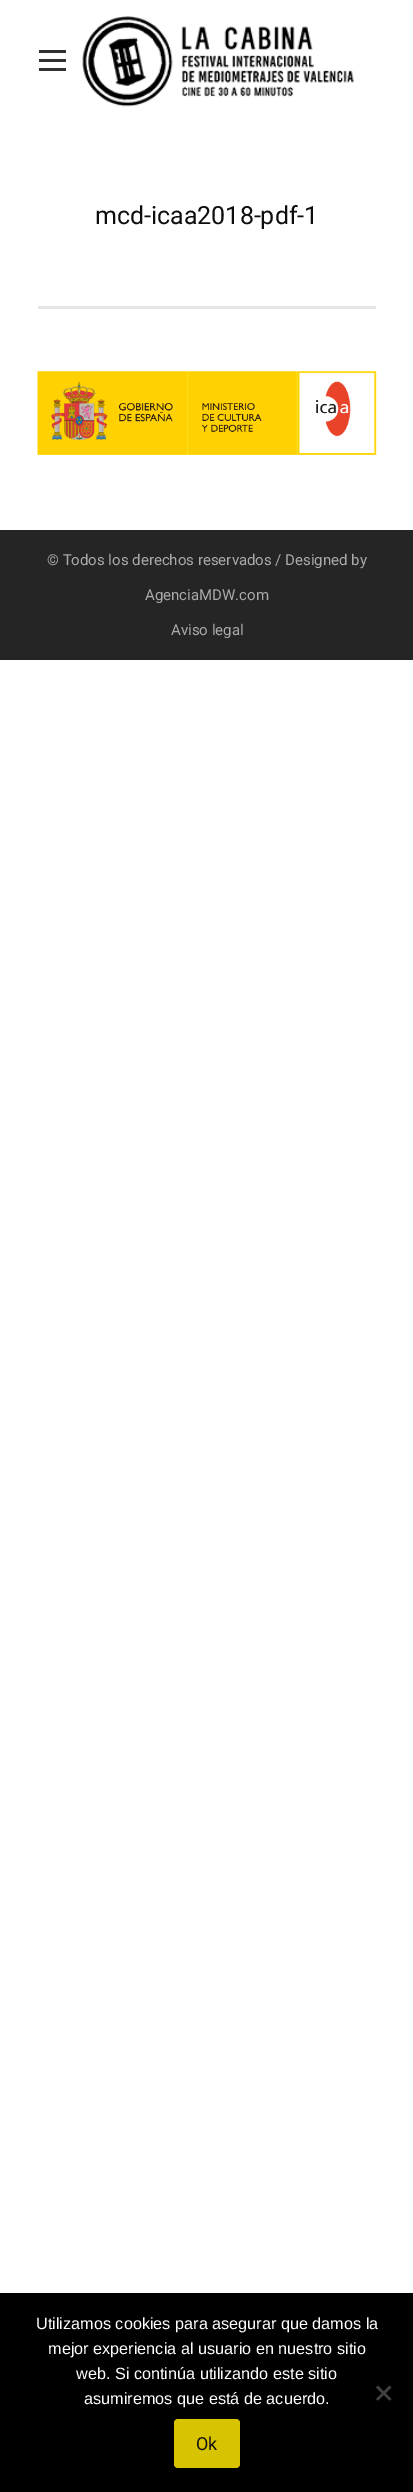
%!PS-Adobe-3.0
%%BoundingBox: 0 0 413 2492
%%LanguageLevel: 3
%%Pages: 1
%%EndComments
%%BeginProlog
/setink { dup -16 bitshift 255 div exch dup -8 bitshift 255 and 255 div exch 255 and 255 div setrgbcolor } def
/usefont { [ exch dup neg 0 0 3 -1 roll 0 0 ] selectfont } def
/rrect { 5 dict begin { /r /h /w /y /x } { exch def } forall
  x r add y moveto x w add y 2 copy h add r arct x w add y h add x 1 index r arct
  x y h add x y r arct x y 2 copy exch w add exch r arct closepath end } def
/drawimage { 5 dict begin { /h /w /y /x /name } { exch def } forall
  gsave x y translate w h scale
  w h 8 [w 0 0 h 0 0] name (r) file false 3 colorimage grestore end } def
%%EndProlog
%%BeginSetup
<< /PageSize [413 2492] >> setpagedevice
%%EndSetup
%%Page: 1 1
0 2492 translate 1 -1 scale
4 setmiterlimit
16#FFFFFF setink
0 0 413 2492 rectfill
[
    [39 50 27 3 16#303030]
    [39 59 27 3 16#303030]
    [39 68 27 3 16#303030]
] { aload pop setink rectfill } forall
(img1.raw) 82 16 272 91 drawimage
/Roboto-Regular 25 usefont
16#0D0D0D setink
95 224 moveto (mcd-icaa2018-pdf-1) show
16#E5E5E5 setink
38 306 338 3 rectfill
(img2.raw) 37 371 340 84 drawimage
16#252525 setink
0 530 413 130 rectfill
/Roboto-Regular 15 usefont
16#AAAAAA setink
[
    [(© Todos los derechos reservados / Designed by) 47 565]
    [(AgenciaMDW.com) 145 600]
    [(Aviso legal) 171 635]
] { aload pop moveto show } forall
16#000000 setink
0 2293 413 199 rectfill
/LiberationSans-Regular 16.25 usefont
16#FFFFFF setink
[
    [(Utilizamos cookies para asegurar que damos la) 36 2329]
    [(mejor experiencia al usuario en nuestro sitio) 48 2354]
    [(web. Si continúa utilizando este sitio) 76 2379]
    [(asumiremos que está de acuerdo.) 84 2404]
] { aload pop moveto show } forall
16#404040 setink
389.5 2385.5 moveto 391.5 2387.5 lineto 378 2400.5 lineto 376 2399 lineto closepath fill
376 2387.5 moveto 378 2385.5 lineto 391.5 2399 lineto 389.5 2400.5 lineto closepath fill
16#D8C300 setink
174 2419 66 49 4 rrect fill
/Roboto-Regular 18 usefont
16#141414 setink
196 2450 moveto (Ok) show
showpage
%%EOF
